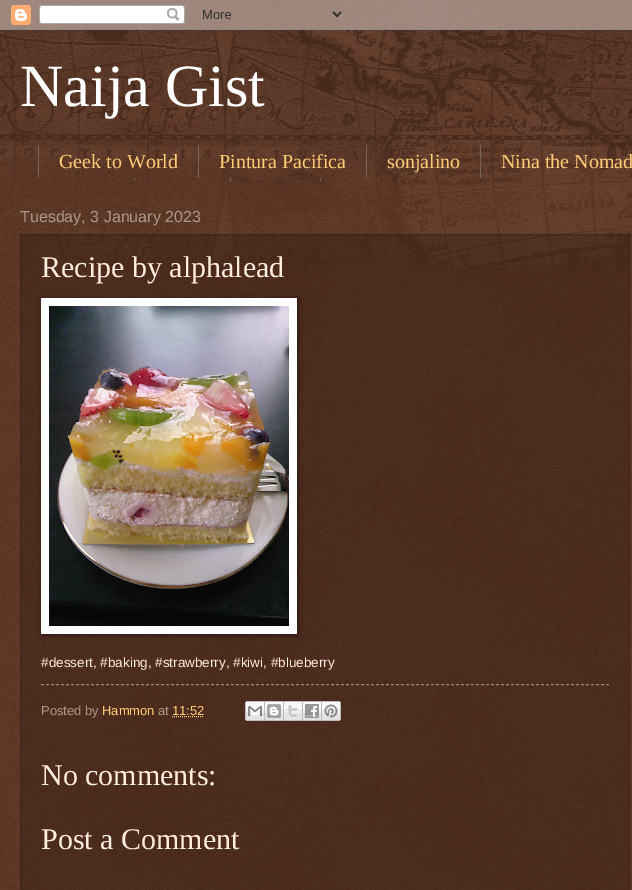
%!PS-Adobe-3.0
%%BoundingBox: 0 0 632 890
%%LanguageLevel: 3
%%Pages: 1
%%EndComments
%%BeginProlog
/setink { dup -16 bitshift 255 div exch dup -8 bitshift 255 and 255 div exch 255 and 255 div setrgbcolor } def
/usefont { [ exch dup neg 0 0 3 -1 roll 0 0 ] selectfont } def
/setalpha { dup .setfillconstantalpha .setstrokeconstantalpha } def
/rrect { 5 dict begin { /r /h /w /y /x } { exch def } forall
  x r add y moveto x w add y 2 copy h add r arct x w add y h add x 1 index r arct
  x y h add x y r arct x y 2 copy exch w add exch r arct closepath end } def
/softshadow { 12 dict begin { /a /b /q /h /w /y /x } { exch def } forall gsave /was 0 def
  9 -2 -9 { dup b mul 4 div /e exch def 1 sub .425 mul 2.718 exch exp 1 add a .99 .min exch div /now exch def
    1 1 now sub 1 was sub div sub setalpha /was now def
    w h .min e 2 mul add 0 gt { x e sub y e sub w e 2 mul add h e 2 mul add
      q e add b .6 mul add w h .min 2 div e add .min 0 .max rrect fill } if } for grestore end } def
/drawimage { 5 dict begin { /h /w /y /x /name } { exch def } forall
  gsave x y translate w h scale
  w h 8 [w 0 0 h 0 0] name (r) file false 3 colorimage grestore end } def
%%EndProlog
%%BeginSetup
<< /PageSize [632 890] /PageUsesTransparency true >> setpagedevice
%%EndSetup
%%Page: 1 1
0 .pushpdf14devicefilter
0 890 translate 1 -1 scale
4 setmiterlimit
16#441500 setink
0 0 632 890 rectfill
(img1.raw) 0 0 632 890 drawimage
(img2.raw) 0 0 632 30 drawimage
(img3.raw) 0 30 632 240 drawimage
/LiberationSerif-Regular 60 usefont
16#FFFFFF setink
20 106 moveto (Naija Gist) show
16#776655 setink
198 145 1 33 rectfill
38 145 1 33 rectfill
/LiberationSerif-Regular 20 usefont
16#FFCC77 setink
59 168 moveto (Geek to World) show
16#776655 setink
366 145 1 33 rectfill
16#FFCC77 setink
219 168 moveto (Pintura Pacifica) show
16#776655 setink
480 145 1 33 rectfill
16#FFCC77 setink
387 168 moveto (sonjalino) show
501 168 moveto (Nina the Nomad) show
[
    [134 178 1 3 16#776655]
    [230 178 1 3 16#776655]
    [320 178 1 3 16#776655]
] { aload pop setink rectfill } forall
/LiberationSans-Regular 16 usefont
16#AA9988 setink
20 222 moveto (Tuesday, 3 January 2023) show
0.2 setalpha
16#000000 setink
20 234 610 656 rectfill
1 setalpha
16#332211 setink
[1 1] 0 setdash
20 234.5 moveto 630 234.5 lineto stroke
629.5 234 moveto 629.5 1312 lineto stroke
20.5 234 moveto 20.5 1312 lineto stroke
/LiberationSerif-Regular 30 usefont
16#FFEEDD setink
41 277 moveto (Recipe by alphalead) show
16#000000 setink
42 299 256 336 0 2.5 0.5 softshadow
16#FFFFFF setink
41 298 256 336 rectfill
(img4.raw) 49 306 240 320 drawimage
/LiberationSans-Regular 13.5 usefont
16#FFEEDD setink
41 667 moveto (#dessert, #baking, #strawberry, #kiwi, #blueberry) show
16#998877 setink
[3 2] 0 setdash
41 684.5 moveto 609 684.5 lineto stroke
/LiberationSans-Regular 13 usefont
16#AA9988 setink
41 715 moveto (Posted by) show
16#FFCC77 setink
102 715 moveto (Hammon) show
16#AA9988 setink
158 715 moveto (at) show
16#FFCC77 setink
172 715 moveto (11:52) show
[1 1] 0 setdash
172 716.5 moveto 204 716.5 lineto stroke
(img5.raw) 245 701 20 20 drawimage
(img6.raw) 265 701 19 20 drawimage
(img7.raw) 284 701 19 20 drawimage
(img8.raw) 303 701 19 20 drawimage
(img9.raw) 322 701 19 20 drawimage
/LiberationSerif-Regular 30 usefont
16#FFEEDD setink
41 785 moveto (No comments:) show
41 849 moveto (Post a Comment) show
.poppdf14devicefilter showpage
%%EOF
